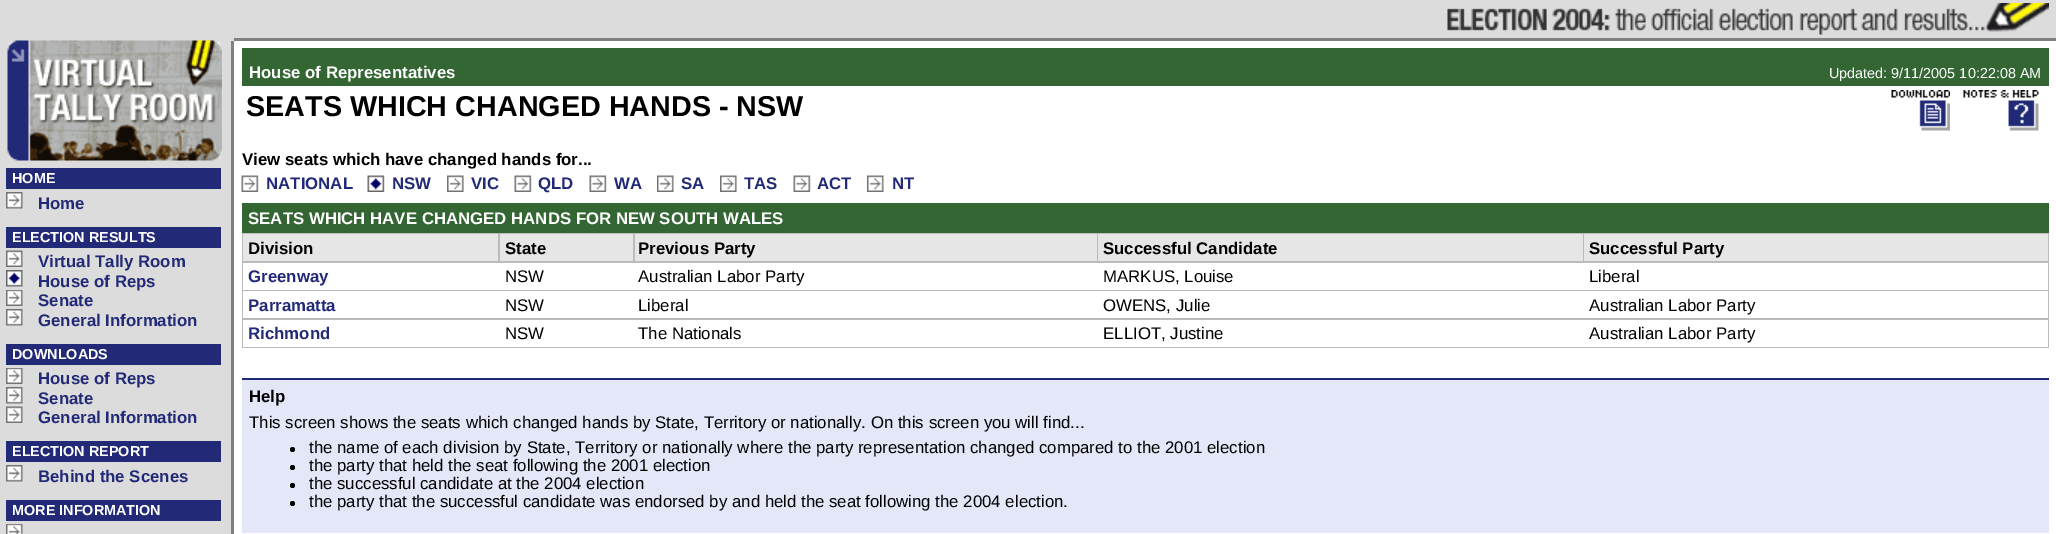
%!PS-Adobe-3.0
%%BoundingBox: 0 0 2056 534
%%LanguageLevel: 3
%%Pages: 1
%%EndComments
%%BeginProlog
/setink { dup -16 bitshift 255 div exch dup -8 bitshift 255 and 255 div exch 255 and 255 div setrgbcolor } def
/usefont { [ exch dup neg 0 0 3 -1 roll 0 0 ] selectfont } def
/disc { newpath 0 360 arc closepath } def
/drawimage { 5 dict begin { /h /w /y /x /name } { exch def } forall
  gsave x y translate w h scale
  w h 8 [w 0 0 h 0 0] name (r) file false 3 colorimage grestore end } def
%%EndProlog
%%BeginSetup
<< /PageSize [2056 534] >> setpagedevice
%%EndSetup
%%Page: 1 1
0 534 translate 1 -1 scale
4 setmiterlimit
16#FFFFFF setink
0 0 2056 534 rectfill
[
    [0 0 234 41 16#DCDCDC]
    [234 0 1822 38 16#DCDCDC]
    [234 38 1822 3 16#808080]
] { aload pop setink rectfill } forall
(img1.raw) 1447 3 602 32 drawimage
16#DCDCDC setink
0 41 231 493 rectfill
16#808080 setink
231 41 3 493 rectfill
(img2.raw) 7 40 215 121 drawimage
16#222A77 setink
6 168 215 21 rectfill
/LiberationSans-Bold 14.4 usefont
16#FFFFFF setink
12 183 moveto (HOME) show
(img3.raw) 6 192 17 17 drawimage
/LiberationSans-Bold 16.8 usefont
16#222A77 setink
38 209 moveto (Home) show
6 227 215 21 rectfill
/LiberationSans-Bold 14.4 usefont
16#FFFFFF setink
12 242 moveto (ELECTION RESULTS) show
(img4.raw) 6 250 17 17 drawimage
/LiberationSans-Bold 16.8 usefont
16#222A77 setink
38 267 moveto (Virtual Tally Room) show
(img5.raw) 6 270 17 17 drawimage
38 287 moveto (House of Reps) show
(img6.raw) 6 290 17 16 drawimage
38 306 moveto (Senate) show
(img3.raw) 6 309 17 17 drawimage
38 326 moveto (General Information) show
6 344 215 21 rectfill
/LiberationSans-Bold 14.4 usefont
16#FFFFFF setink
12 359 moveto (DOWNLOADS) show
(img6.raw) 6 368 17 16 drawimage
/LiberationSans-Bold 16.8 usefont
16#222A77 setink
38 384 moveto (House of Reps) show
(img3.raw) 6 387 17 17 drawimage
38 404 moveto (Senate) show
(img4.raw) 6 406 17 17 drawimage
38 423 moveto (General Information) show
6 441 215 21 rectfill
/LiberationSans-Bold 14.4 usefont
16#FFFFFF setink
12 456 moveto (ELECTION REPORT) show
(img3.raw) 6 465 17 17 drawimage
/LiberationSans-Bold 16.8 usefont
16#222A77 setink
38 482 moveto (Behind the Scenes) show
6 500 215 21 rectfill
/LiberationSans-Bold 14.4 usefont
16#FFFFFF setink
12 515 moveto (MORE INFORMATION) show
(img7.raw) 6 524 17 10 drawimage
16#336633 setink
242 48 1807 38 rectfill
/LiberationSans-Bold 16.8 usefont
16#FFFFFF setink
249 78 moveto (House of Representatives) show
/LiberationSans-Regular 14.4 usefont
1829 78 moveto (Updated: 9/11/2005 10:22:08 AM) show
/LiberationSans-Bold 28.75 usefont
16#000000 setink
246 116 moveto (SEATS WHICH CHANGED HANDS - NSW) show
(img8.raw) 1891 90 59 41 drawimage
(img9.raw) 1963 90 76 41 drawimage
/LiberationSans-Bold 16.8 usefont
242 165 moveto (View seats which have changed hands for...) show
(img10.raw) 241 175 18 17 drawimage
16#222A77 setink
266 189 moveto (NATIONAL) show
(img11.raw) 367 175 18 17 drawimage
392 189 moveto (NSW) show
(img12.raw) 447 175 17 17 drawimage
471 189 moveto (VIC) show
(img13.raw) 514 175 18 17 drawimage
538 189 moveto (QLD) show
(img14.raw) 589 175 18 17 drawimage
614 189 moveto (WA) show
(img15.raw) 657 175 17 17 drawimage
681 189 moveto (SA) show
(img12.raw) 720 175 17 17 drawimage
744 189 moveto (TAS) show
(img10.raw) 793 175 18 17 drawimage
817 189 moveto (ACT) show
(img15.raw) 867 175 17 17 drawimage
892 189 moveto (NT) show
16#BBBBBB setink
242 233 1807 115 rectfill
16#336633 setink
242 203 1807 30 rectfill
16#FFFFFF setink
248 224 moveto (SEATS WHICH HAVE CHANGED HANDS FOR NEW SOUTH WALES) show
16#E6E6E6 setink
243 234 255 27 rectfill
16#000000 setink
248 254 moveto (Division) show
16#E6E6E6 setink
500 234 133 27 rectfill
16#000000 setink
505 254 moveto (State) show
16#E6E6E6 setink
635 234 462 27 rectfill
16#000000 setink
638 254 moveto (Previous Party) show
16#E6E6E6 setink
1098 234 485 27 rectfill
16#000000 setink
1103 254 moveto (Successful Candidate) show
16#E6E6E6 setink
1584 234 464 27 rectfill
16#000000 setink
1589 254 moveto (Successful Party) show
16#FFFFFF setink
243 263 1805 27 rectfill
16#222A77 setink
248 282 moveto (Greenway) show
/LiberationSans-Regular 16.8 usefont
16#000000 setink
[
    [(NSW) 505 282]
    [(Australian Labor Party) 638 282]
    [(MARKUS, Louise) 1103 282]
    [(Liberal) 1589 282]
] { aload pop moveto show } forall
16#FFFFFF setink
243 291 1805 27 rectfill
/LiberationSans-Bold 16.8 usefont
16#222A77 setink
248 311 moveto (Parramatta) show
/LiberationSans-Regular 16.8 usefont
16#000000 setink
[
    [(NSW) 505 311]
    [(Liberal) 638 311]
    [(OWENS, Julie) 1103 311]
    [(Australian Labor Party) 1589 311]
] { aload pop moveto show } forall
16#FFFFFF setink
243 320 1805 27 rectfill
/LiberationSans-Bold 16.8 usefont
16#222A77 setink
248 339 moveto (Richmond) show
/LiberationSans-Regular 16.8 usefont
16#000000 setink
[
    [(NSW) 505 339]
    [(The Nationals) 638 339]
    [(ELLIOT, Justine) 1103 339]
    [(Australian Labor Party) 1589 339]
] { aload pop moveto show } forall
16#E4E7F8 setink
242 380 1807 153 rectfill
16#212A77 setink
242 378 1807 2 rectfill
/LiberationSans-Bold 16.8 usefont
16#000000 setink
249 402 moveto (Help) show
/LiberationSans-Regular 16.8 usefont
249 428 moveto (This screen shows the seats which changed hands by State, Territory or nationally. On this screen you will find...) show
292.5 449.5 2.5 disc fill
309 453 moveto (the name of each division by State, Territory or nationally where the party representation changed compared to the 2001 election) show
292.5 467.5 2.5 disc fill
309 471 moveto (the party that held the seat following the 2001 election) show
292.5 485.5 2.5 disc fill
309 489 moveto (the successful candidate at the 2004 election) show
292.5 503.5 2.5 disc fill
309 507 moveto (the party that the successful candidate was endorsed by and held the seat following the 2004 election.) show
showpage
%%EOF
